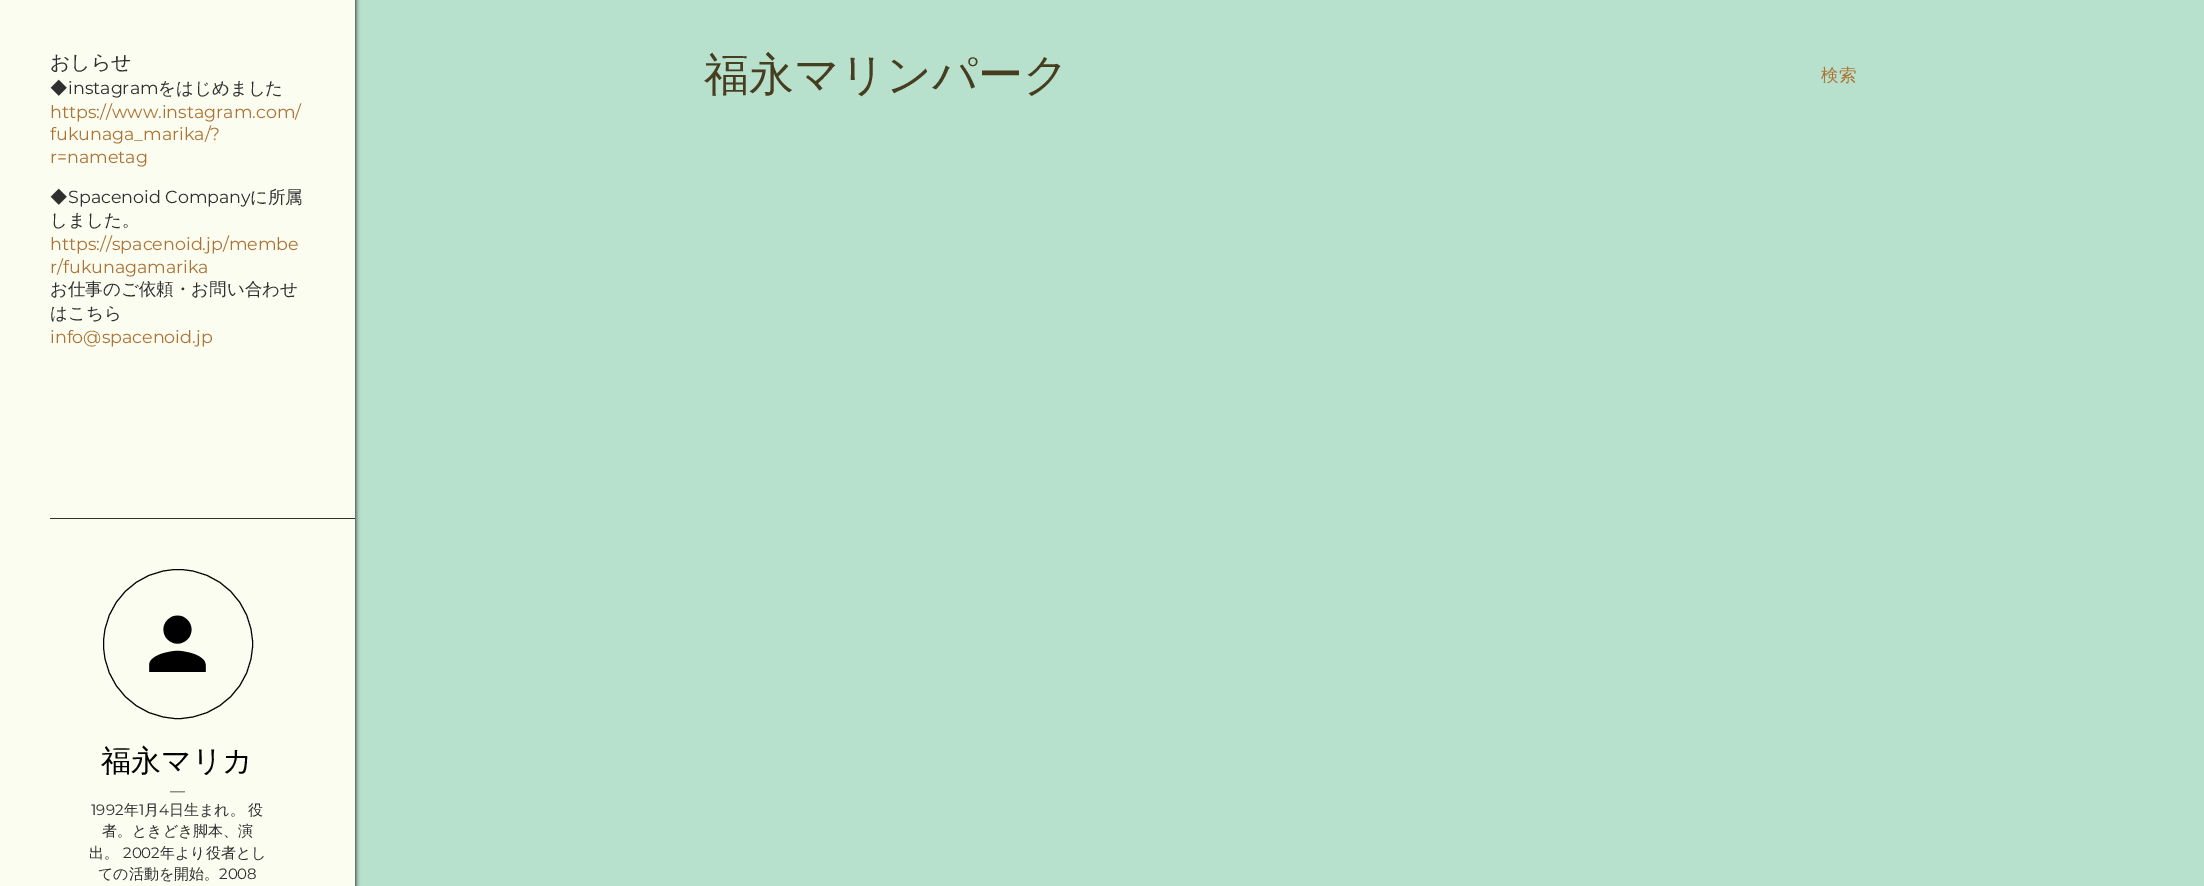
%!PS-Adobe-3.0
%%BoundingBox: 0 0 2204 886
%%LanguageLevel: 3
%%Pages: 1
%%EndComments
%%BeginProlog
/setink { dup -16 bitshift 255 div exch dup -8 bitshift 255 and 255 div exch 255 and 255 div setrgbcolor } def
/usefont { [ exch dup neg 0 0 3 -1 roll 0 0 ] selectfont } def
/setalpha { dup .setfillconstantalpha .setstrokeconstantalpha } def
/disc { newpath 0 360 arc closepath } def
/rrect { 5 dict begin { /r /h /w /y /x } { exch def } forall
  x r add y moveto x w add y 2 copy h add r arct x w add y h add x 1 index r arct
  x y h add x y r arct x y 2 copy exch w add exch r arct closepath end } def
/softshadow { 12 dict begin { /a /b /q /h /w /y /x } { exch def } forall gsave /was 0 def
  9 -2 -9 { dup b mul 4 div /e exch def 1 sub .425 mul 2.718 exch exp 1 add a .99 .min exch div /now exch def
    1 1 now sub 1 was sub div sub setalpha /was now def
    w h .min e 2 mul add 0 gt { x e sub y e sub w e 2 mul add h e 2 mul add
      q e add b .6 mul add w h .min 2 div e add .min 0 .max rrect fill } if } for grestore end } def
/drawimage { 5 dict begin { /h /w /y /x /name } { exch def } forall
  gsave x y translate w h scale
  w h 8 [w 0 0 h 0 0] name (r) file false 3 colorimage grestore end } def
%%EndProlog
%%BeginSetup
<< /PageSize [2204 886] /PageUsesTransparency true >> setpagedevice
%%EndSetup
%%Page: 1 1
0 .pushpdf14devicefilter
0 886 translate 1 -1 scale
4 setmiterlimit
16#B7E1CD setink
0 0 2204 886 rectfill
16#2F2F2F setink
1 0 355 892 0 2 1 softshadow
16#FBFDF1 setink
0 0 355 886 rectfill
/WenQuanYiZenHei-Medium 20 usefont
16#2F2F2F setink
50 69 moveto (おしらせ) show
/WenQuanYiZenHei-Medium 17.5 usefont
50 94 moveto (◆) show
/Montserrat-Regular 17.5 usefont
68 94 moveto (instagram) show
/WenQuanYiZenHei-Medium 17.5 usefont
158 94 moveto (をはじめました) show
/Montserrat-Regular 17.5 usefont
16#AD7234 setink
[
    [(https://www.instagram.com/) 50 118]
    [(fukunaga_marika/?) 50 140]
    [(r=nametag) 50 163]
] { aload pop moveto show } forall
/WenQuanYiZenHei-Medium 17.5 usefont
16#2F2F2F setink
50 203 moveto (◆) show
/Montserrat-Regular 17.5 usefont
68 203 moveto (Spacenoid Company) show
/WenQuanYiZenHei-Medium 17.5 usefont
250 203 moveto (に所属) show
50 226 moveto (しました。) show
/Montserrat-Regular 17.5 usefont
16#AD7234 setink
50 250 moveto (https://spacenoid.jp/membe) show
50 273 moveto (r/fukunagamarika) show
/WenQuanYiZenHei-Medium 17.5 usefont
16#2F2F2F setink
50 295 moveto (お仕事のご依頼・お問い合わせ) show
50 319 moveto (はこちら) show
/Montserrat-Regular 17.5 usefont
16#AD7234 setink
50 343 moveto (info@spacenoid.jp) show
16#2F2F2F setink
50 518 305 1 rectfill
16#000000 setink
178 644 74.5 disc stroke
(img1.raw) 149 615 57 57 drawimage
/WenQuanYiZenHei-Medium 30 usefont
101 771 moveto (福永マリカ) show
/Montserrat-Regular 15 usefont
16#2F2F2F setink
170 796 moveto (—) show
91 815 moveto (1992) show
/WenQuanYiZenHei-Medium 15 usefont
124 815 moveto (年) show
/Montserrat-Regular 15 usefont
139 815 moveto (1) show
/WenQuanYiZenHei-Medium 15 usefont
144 815 moveto (月) show
/Montserrat-Regular 15 usefont
159 815 moveto (4) show
/WenQuanYiZenHei-Medium 15 usefont
169 815 moveto -1 0 32 (日生まれ。 役) widthshow
102 836 moveto (者。ときどき脚本、演) show
89 858 moveto (出。) show
/Montserrat-Regular 15 usefont
123 858 moveto (2002) show
/WenQuanYiZenHei-Medium 15 usefont
160 858 moveto (年より役者とし) show
98 879 moveto (ての活動を開始。) show
/Montserrat-Regular 15 usefont
219 879 moveto (2008) show
/WenQuanYiZenHei-Medium 45 usefont
16#473E20 setink
704 90 moveto (福永マリンパーク) show
/WenQuanYiZenHei-Medium 17.5 usefont
16#AD7234 setink
1821 81 moveto (検索) show
.poppdf14devicefilter showpage
%%EOF
